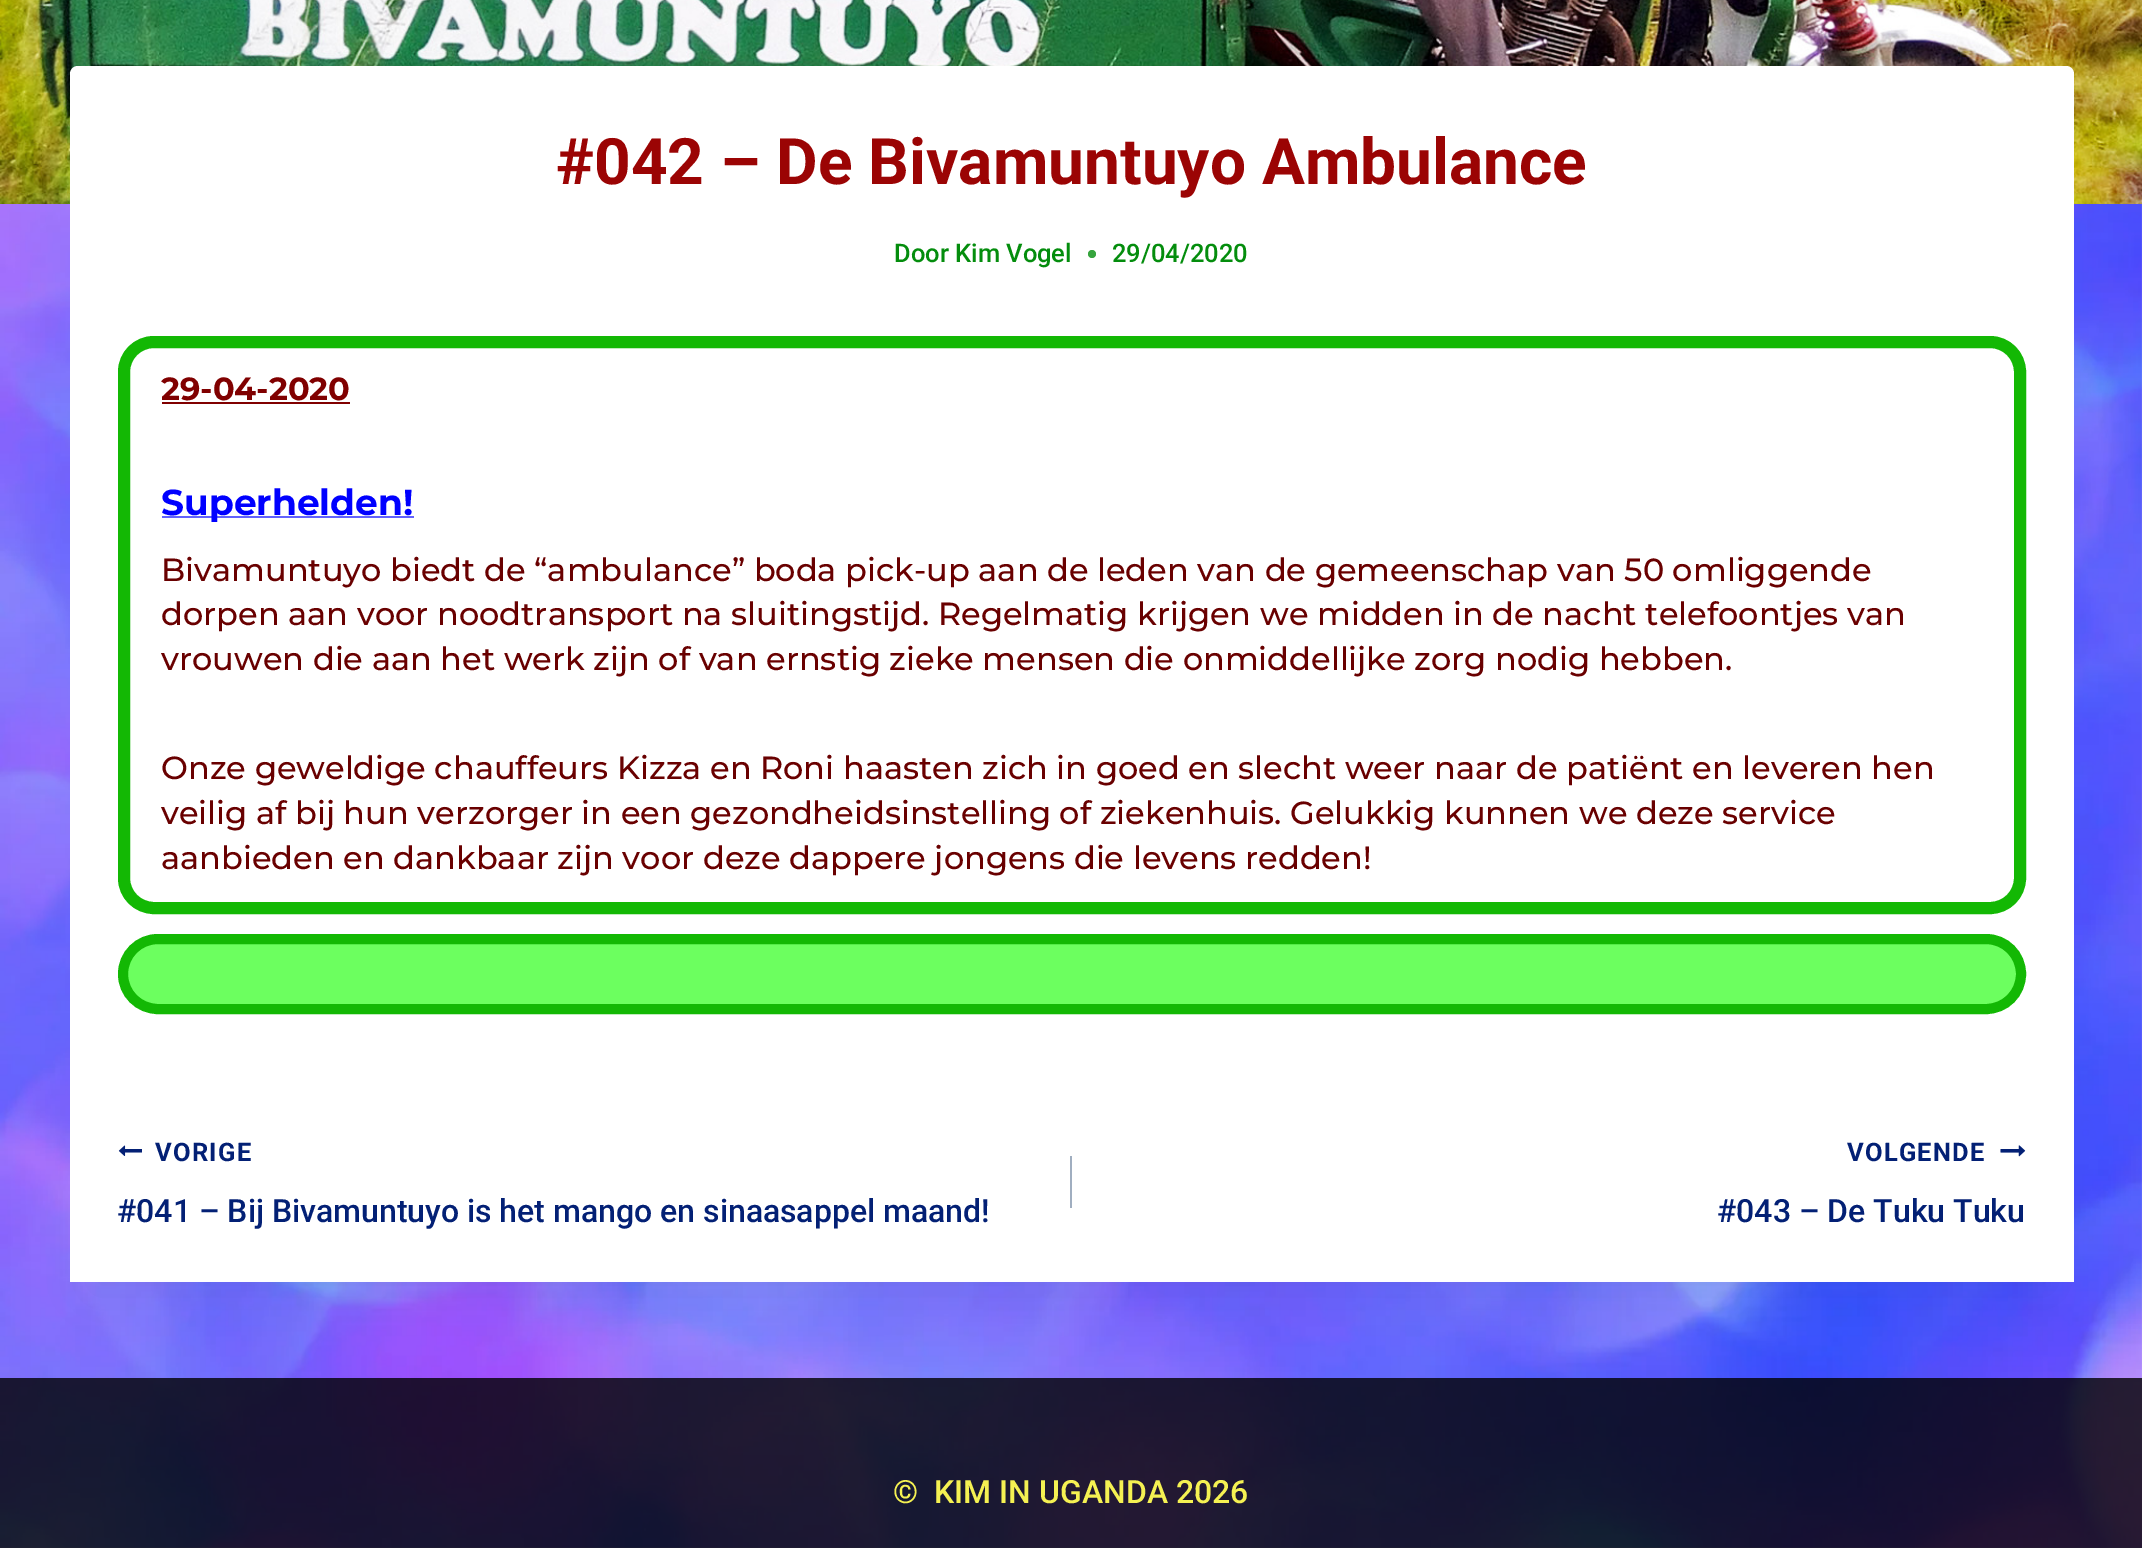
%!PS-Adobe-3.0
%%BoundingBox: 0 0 2142 1548
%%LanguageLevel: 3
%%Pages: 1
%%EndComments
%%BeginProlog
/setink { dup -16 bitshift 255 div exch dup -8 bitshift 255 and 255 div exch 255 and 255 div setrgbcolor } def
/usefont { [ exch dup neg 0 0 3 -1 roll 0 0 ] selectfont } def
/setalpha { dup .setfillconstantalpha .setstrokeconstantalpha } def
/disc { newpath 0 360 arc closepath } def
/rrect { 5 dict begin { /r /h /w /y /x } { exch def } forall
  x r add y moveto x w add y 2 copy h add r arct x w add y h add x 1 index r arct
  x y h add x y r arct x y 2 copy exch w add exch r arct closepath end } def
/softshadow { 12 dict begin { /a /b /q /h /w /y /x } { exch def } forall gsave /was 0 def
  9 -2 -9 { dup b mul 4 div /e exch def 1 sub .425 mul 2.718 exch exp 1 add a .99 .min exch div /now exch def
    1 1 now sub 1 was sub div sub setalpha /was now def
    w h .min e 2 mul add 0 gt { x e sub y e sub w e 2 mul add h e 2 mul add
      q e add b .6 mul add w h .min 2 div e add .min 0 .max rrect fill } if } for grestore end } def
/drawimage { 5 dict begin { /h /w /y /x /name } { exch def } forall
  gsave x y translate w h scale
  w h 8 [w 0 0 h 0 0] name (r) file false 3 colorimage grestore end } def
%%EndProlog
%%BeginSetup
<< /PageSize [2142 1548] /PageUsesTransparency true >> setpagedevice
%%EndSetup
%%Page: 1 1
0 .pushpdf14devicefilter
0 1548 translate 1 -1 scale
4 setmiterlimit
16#FFFFFF setink
0 0 2142 1548 rectfill
(img1.raw) 0 204 2142 1344 drawimage
(img2.raw) 0 0 2142 204 drawimage
16#000000 setink
90 1132 1964 160 0 25 0.05 softshadow
16#FFFFFF setink
78 66 moveto 2066 66 lineto 2070.5 66 2074 69.5 2074 74 curveto 2074 1082 lineto 70 1082 lineto 70 74 lineto 70 69.5 73.5 66 78 66 curveto closepath fill
/Roboto-Bold 64 usefont
16#9B0404 setink
556 184 moveto (#042 – De Bivamuntuyo Ambulance) show
/Roboto-Medium 25.5 usefont
16#048D0D setink
894 262 moveto (Door Kim Vogel) show
16#36A43D setink
1092 254 4 disc fill
16#048D0D setink
1112 262 moveto (29/04/2020) show
16#13B804 setink
12 setlinewidth
124 342 1896 566 30 rrect stroke
/Montserrat-Bold 32 usefont
16#800000 setink
161 400 moveto (29-04-2020) show
162 402 188 2 rectfill
16#6262FD setink
162 516 252 2 rectfill
/Montserrat-Bold 36 usefont
16#0000FF setink
161 515 moveto (Superhelden!) show
/Montserrat-Medium 32 usefont
16#690000 setink
[
    [(Bivamuntuyo biedt de “ambulance” boda pick-up aan de leden van de gemeenschap van 50 omliggende) 161 581]
    [(dorpen aan voor noodtransport na sluitingstijd. Regelmatig krijgen we midden in de nacht telefoontjes van) 161 625]
    [(vrouwen die aan het werk zijn of van ernstig zieke mensen die onmiddellijke zorg nodig hebben.) 161 670]
    [(Onze geweldige chauffeurs Kizza en Roni haasten zich in goed en slecht weer naar de patiënt en leveren hen) 161 779]
    [(veilig af bij hun verzorger in een gezondheidsinstelling of ziekenhuis. Gelukkig kunnen we deze service) 161 824]
    [(aanbieden en dankbaar zijn voor deze dappere jongens die levens redden!) 161 869]
] { aload pop moveto show } forall
16#6CFF5F setink
123 939 1898 70 35 rrect gsave fill grestore
16#13B804 setink
10 setlinewidth
stroke
16#FFFFFF setink
70 1082 2004 200 rectfill
(img3.raw) 118 1145 24 11 drawimage
/Roboto-Bold 25.5 usefont
16#032075 setink
155 1161 moveto 1.25 0 (VORIGE) ashow
/Roboto-Medium 32 usefont
117 1222 moveto (#041 – Bij Bivamuntuyo is het mango en sinaasappel maand!) show
16#A0AEC0 setink
1070 1156 2 52 rectfill
/Roboto-Bold 25.5 usefont
16#032075 setink
1847 1161 moveto 1.25 0 (VOLGENDE) ashow
(img4.raw) 2000 1145 26 12 drawimage
/Roboto-Medium 32 usefont
1717 1222 moveto (#043 – De Tuku Tuku) show
0.8 setalpha
16#000000 setink
0 1378 2142 170 rectfill
1 setalpha
16#F5F152 setink
893 1503 moveto (©  KIM IN UGANDA 2026) show
.poppdf14devicefilter showpage
%%EOF
